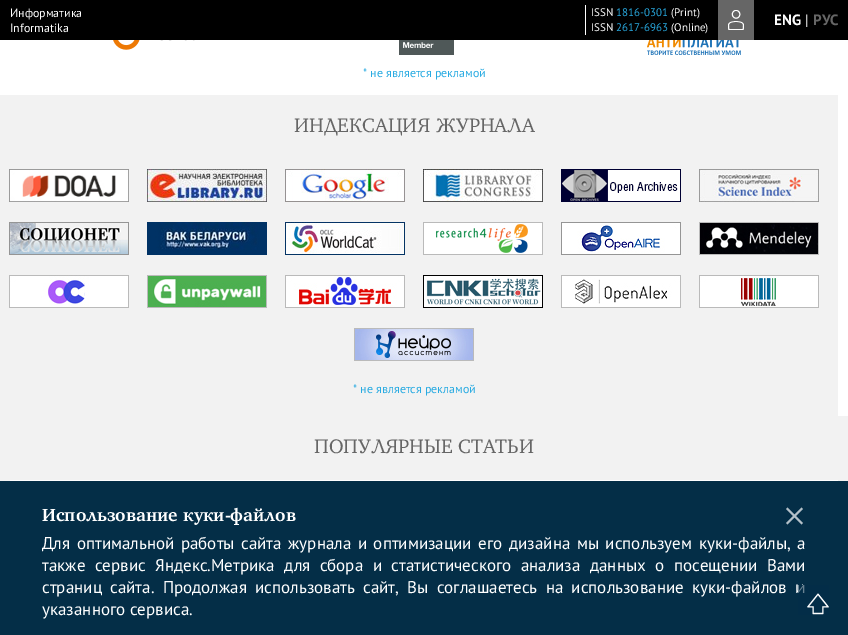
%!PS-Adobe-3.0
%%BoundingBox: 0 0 848 635
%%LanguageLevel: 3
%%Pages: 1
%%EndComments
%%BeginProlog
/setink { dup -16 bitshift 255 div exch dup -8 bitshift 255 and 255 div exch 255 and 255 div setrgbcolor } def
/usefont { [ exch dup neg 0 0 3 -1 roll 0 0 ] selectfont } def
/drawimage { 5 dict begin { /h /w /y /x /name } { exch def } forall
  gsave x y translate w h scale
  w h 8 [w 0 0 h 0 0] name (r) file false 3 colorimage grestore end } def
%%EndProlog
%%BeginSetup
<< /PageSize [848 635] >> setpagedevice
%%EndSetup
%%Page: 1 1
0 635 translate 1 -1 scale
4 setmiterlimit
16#FFFFFF setink
0 0 848 635 rectfill
16#000000 setink
0 0 848 40 rectfill
/PTSans-Regular 12 usefont
16#FFFFFF setink
10 17 moveto (Информатика) show
10 32 moveto (Informatika) show
585 5 1 30 rectfill
/PTSans-Regular 11 usefont
591 16 moveto (ISSN) show
16#29ABE2 setink
616 16 moveto (1816-0301) show
16#FFFFFF setink
671 16 moveto (\(Print\)) show
591 31 moveto (ISSN) show
16#29ABE2 setink
616 31 moveto (2617-6963) show
16#FFFFFF setink
671 31 moveto (\(Online\)) show
16#666666 setink
718 0 36 40 rectfill
(img1.raw) 728 10 16 20 drawimage
/PTSans-Bold 15 usefont
16#FFFFFF setink
774 25 moveto (ENG) show
/PTSans-Regular 15 usefont
805 25 moveto (|) show
/PTSans-Bold 15 usefont
16#666666 setink
813 25 moveto (РУС) show
(img2.raw) 113 40 82 10 drawimage
(img3.raw) 399 40 55 15 drawimage
(img4.raw) 647 40 94 15 drawimage
/PTSans-Regular 12 usefont
16#29ABE2 setink
363 77 moveto (* не является рекламой) show
16#F2F2F2 setink
0 95 838 321 rectfill
/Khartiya-Regular 20 usefont
16#666666 setink
294 132 moveto (ИНДЕКСАЦИЯ ЖУРНАЛА) show
(img5.raw) 9 169 120 33 drawimage
(img6.raw) 147 169 120 33 drawimage
(img7.raw) 285 169 120 33 drawimage
(img8.raw) 423 169 120 33 drawimage
(img9.raw) 561 169 120 33 drawimage
(img10.raw) 699 169 120 33 drawimage
(img11.raw) 9 222 120 33 drawimage
(img12.raw) 147 222 120 33 drawimage
(img13.raw) 285 222 120 33 drawimage
(img14.raw) 423 222 120 33 drawimage
(img15.raw) 561 222 120 33 drawimage
(img16.raw) 699 222 120 33 drawimage
(img17.raw) 9 275 120 33 drawimage
(img18.raw) 147 275 120 33 drawimage
(img19.raw) 285 275 120 33 drawimage
(img20.raw) 423 275 120 33 drawimage
(img21.raw) 561 275 120 33 drawimage
(img22.raw) 699 275 120 33 drawimage
(img23.raw) 354 328 120 33 drawimage
/PTSans-Regular 12 usefont
16#29ABE2 setink
353 393 moveto (* не является рекламой) show
16#F2F2F2 setink
0 416 848 65 rectfill
/Khartiya-Regular 20 usefont
16#666666 setink
314 453 moveto (ПОПУЛЯРНЫЕ СТАТЬИ) show
16#FFFFFF setink
10 480 828 1 rectfill
16#042E47 setink
0 481 848 154 rectfill
/PTSans-Regular 17 usefont
16#FFFFFF setink
42 593 moveto 3.75 0 32 (страниц сайта. Продолжая использовать сайт, Вы соглашаетесь на использование куки-файлов и) widthshow
(img24.raw) 798 585 31 30 drawimage
/Khartiya-Bold 18 usefont
42 521 moveto (Использование куки-файлов) show
16#B4C0C8 setink
801.5 507.5 moveto 803 509 lineto 787.5 524.5 lineto 786 523 lineto closepath fill
786 509 moveto 787.5 507.5 lineto 803 523 lineto 801.5 524.5 lineto closepath fill
/PTSans-Regular 17 usefont
16#FFFFFF setink
42 549 moveto 2 0 32 (Для оптимальной работы сайта журнала и оптимизации его дизайна мы используем куки-файлы, а) widthshow
42 571 moveto 4.9 0 32 (также сервис Яндекс.Метрика для сбора и статистического анализа данных о посещении Вами) widthshow
42 615 moveto (указанного сервиса.) show
showpage
%%EOF
